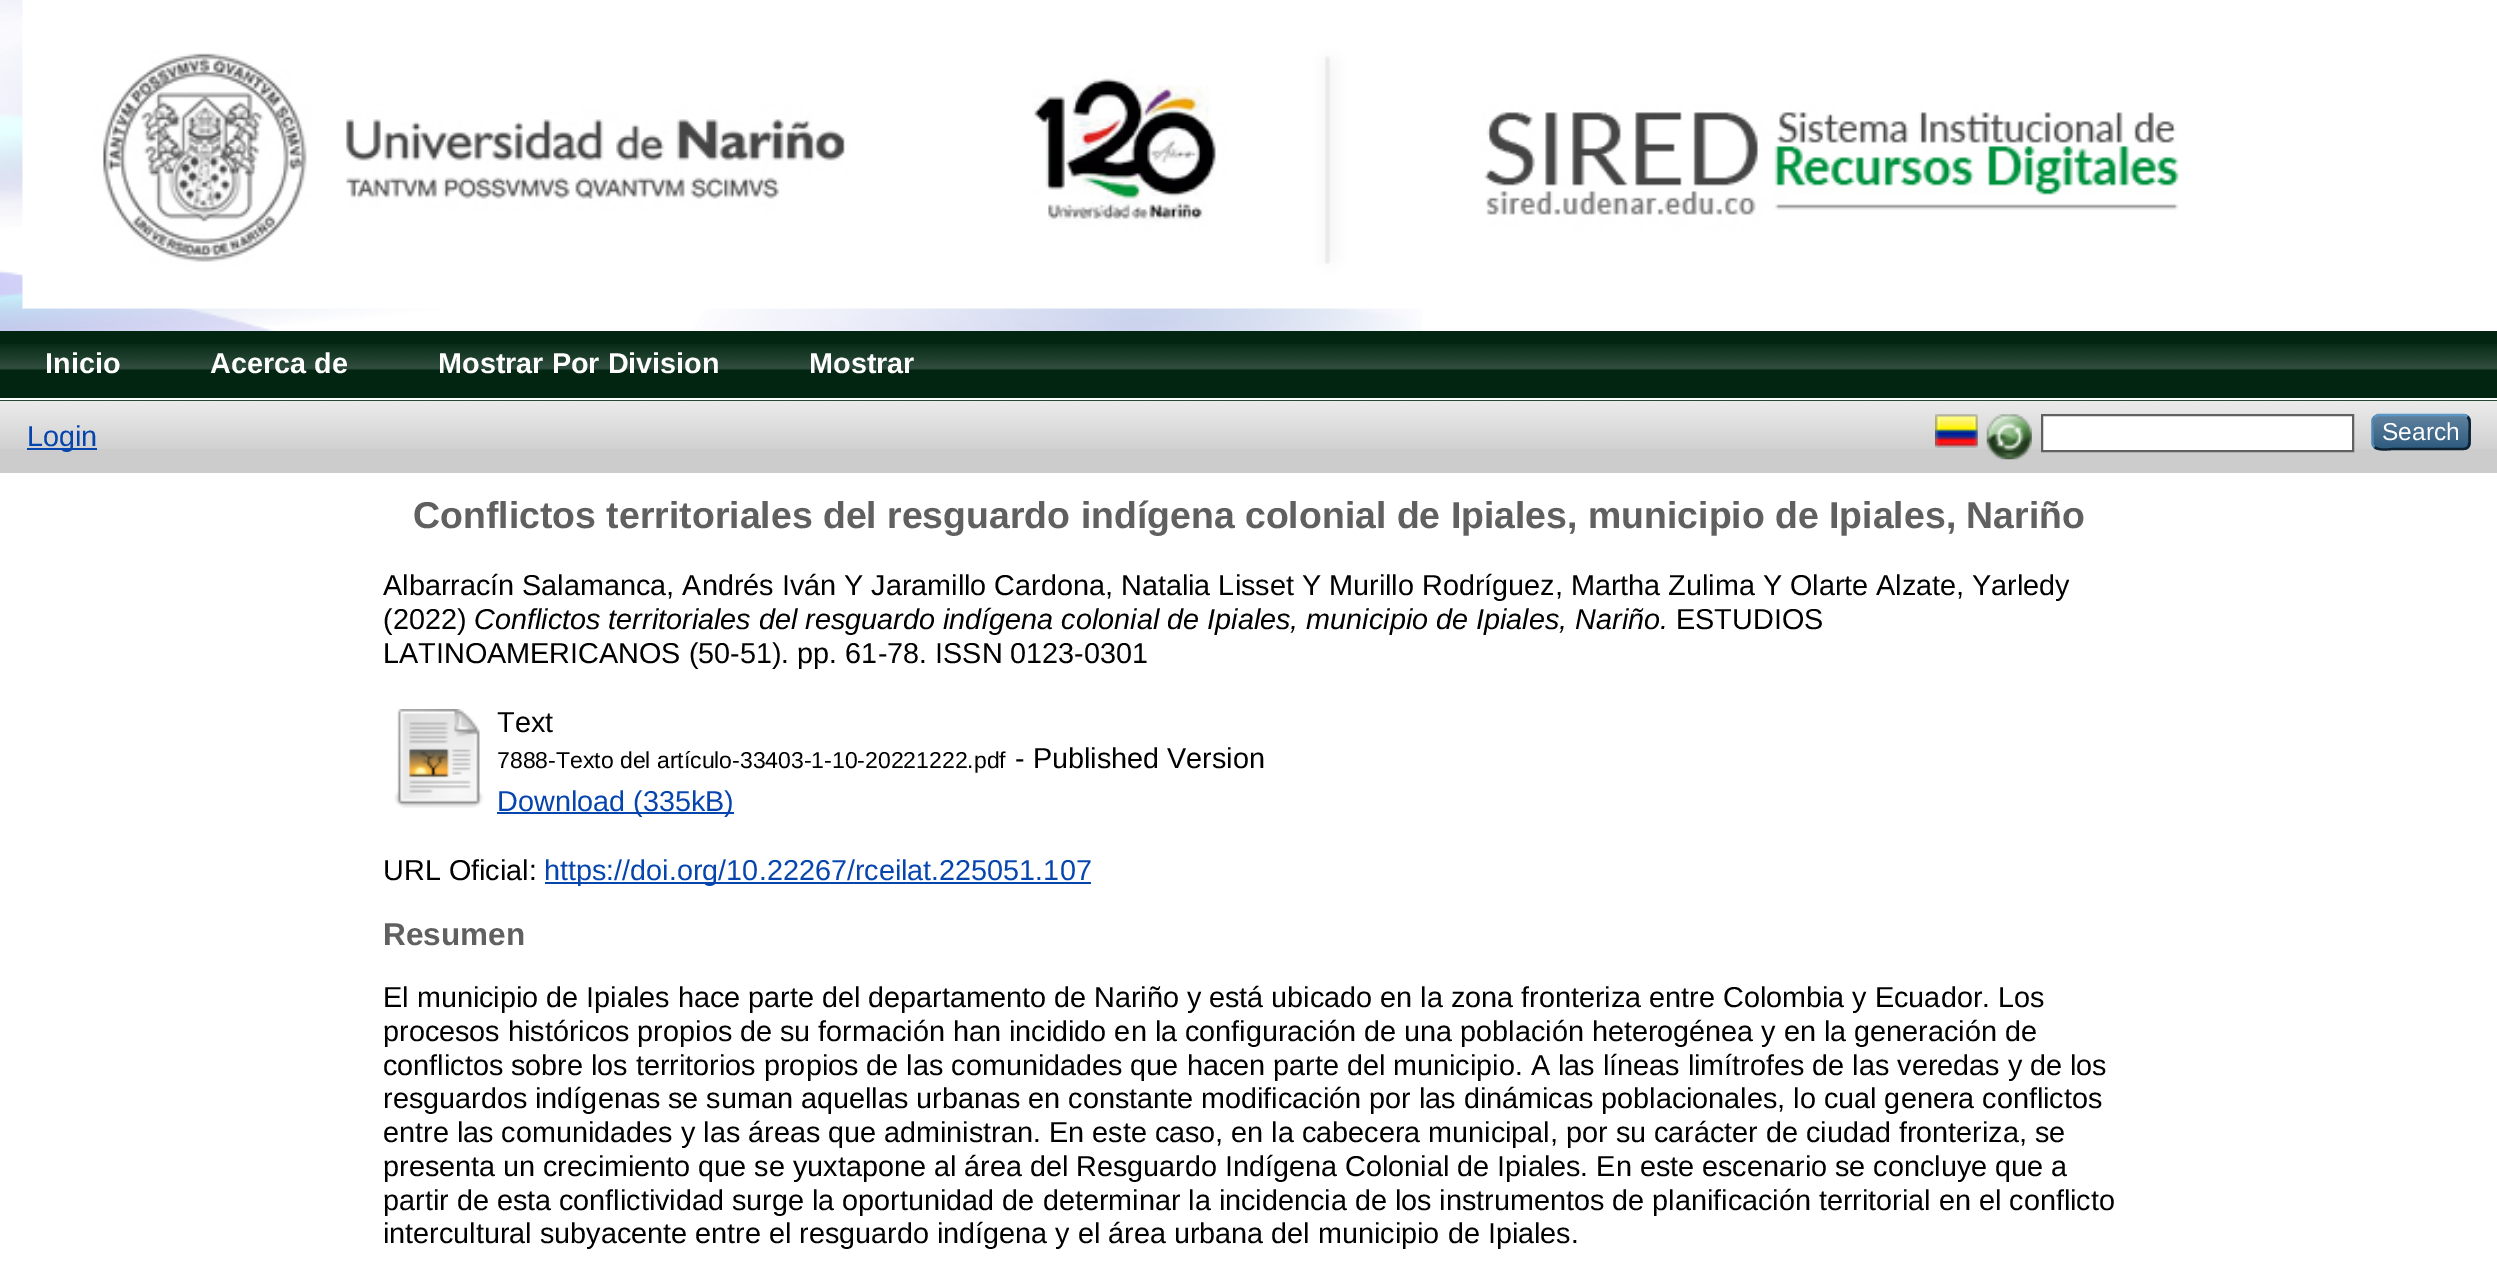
%!PS-Adobe-3.0
%%BoundingBox: 0 0 2497 1280
%%LanguageLevel: 3
%%Pages: 1
%%EndComments
%%BeginProlog
/setink { dup -16 bitshift 255 div exch dup -8 bitshift 255 and 255 div exch 255 and 255 div setrgbcolor } def
/usefont { [ exch dup neg 0 0 3 -1 roll 0 0 ] selectfont } def
/rrect { 5 dict begin { /r /h /w /y /x } { exch def } forall
  x r add y moveto x w add y 2 copy h add r arct x w add y h add x 1 index r arct
  x y h add x y r arct x y 2 copy exch w add exch r arct closepath end } def
/drawimage { 5 dict begin { /h /w /y /x /name } { exch def } forall
  gsave x y translate w h scale
  w h 8 [w 0 0 h 0 0] name (r) file false 3 colorimage grestore end } def
%%EndProlog
%%BeginSetup
<< /PageSize [2497 1280] >> setpagedevice
%%EndSetup
%%Page: 1 1
0 1280 translate 1 -1 scale
4 setmiterlimit
16#FFFFFF setink
0 0 2497 1280 rectfill
(img1.raw) 0 0 1422 331 drawimage
(img2.raw) 22 0 2157 309 drawimage
16#012511 setink
0 331 2497 70 rectfill
(img3.raw) 0 344 2497 26 drawimage
16#FFFFFF setink
0 398 2497 2 rectfill
/LiberationSans-Bold 28.8 usefont
[
    [(Inicio) 45 373]
    [(Acerca de) 210 373]
    [(Mostrar Por Division) 438 373]
    [(Mostrar) 809 373]
] { aload pop moveto show } forall
16#CCCCCC setink
0 401 2497 72 rectfill
(img4.raw) 0 400 2497 49 drawimage
16#0645AD setink
27 448 70 2 rectfill
/LiberationSans-Regular 28.8 usefont
27 446 moveto (Login) show
(img5.raw) 1935 414 43 34 drawimage
(img6.raw) 1986 414 46 46 drawimage
16#FFFFFF setink
2042 415 moveto 2353 415 lineto 2353 451 lineto 2042 451 lineto closepath gsave fill grestore
16#606060 setink
2 setlinewidth
stroke
16#1F4F76 setink
2372 414 99 36 7 rrect fill
(img7.raw) 2372 414 99 36 drawimage
16#5B97C7 setink
2.2 setlinewidth
2374.5 417 moveto 2377.5 415 lineto 2464.5 415 lineto 2467.5 417 lineto stroke
16#0D2131 setink
2467.5 417 moveto 2471 420 2469.5 428 2469.5 432 curveto 2469.5 451.5 2470.5 449 2449.5 449 curveto 2392.5 449 lineto 2391.5 449 2378 451 2374.5 447 curveto stroke
16#5287B3 setink
2374.5 447 moveto 2373 446 2372.5 444.5 2372.5 443 curveto 2372.5 421 lineto 2372.5 419.5 2373 418 2374.5 417 curveto stroke
/LiberationSans-Regular 24.5 usefont
16#FFFFFF setink
2382 440 moveto (Search) show
/LiberationSans-Bold 37.45 usefont
16#606060 setink
413 528 moveto -0.1 0 32 (Conflictos territoriales del resguardo indígena colonial de Ipiales, municipio de Ipiales, Nariño) widthshow
/LiberationSans-Regular 28.8 usefont
16#000000 setink
383 595 moveto (Albarracín Salamanca, Andrés Iván Y Jaramillo Cardona, Natalia Lisset Y Murillo Rodríguez, Martha Zulima Y Olarte Alzate, Yarledy) show
383 629 moveto (\(2022\)) show
/LiberationSans-Italic 28.8 usefont
474 629 moveto (Conflictos territoriales del resguardo indígena colonial de Ipiales, municipio de Ipiales, Nariño.) show
/LiberationSans-Regular 28.8 usefont
1676 629 moveto (ESTUDIOS) show
383 663 moveto (LATINOAMERICANOS \(50-51\). pp. 61-78. ISSN 0123-0301) show
(img8.raw) 394 709 90 99 drawimage
497 732 moveto (Text) show
/LiberationSans-Regular 23 usefont
497 768 moveto (7888-Texto del artículo-33403-1-10-20221222.pdf) show
/LiberationSans-Regular 28.8 usefont
1015 768 moveto (- Published Version) show
16#0645AD setink
497 812 237 2 rectfill
497 811 moveto (Download \(335kB\)) show
16#000000 setink
383 880 moveto (URL Oficial:) show
16#0645AD setink
545 882 546 2 rectfill
544 880 moveto (https://doi.org/10.22267/rceilat.225051.107) show
/LiberationSans-Bold 31.5 usefont
16#606060 setink
383 945 moveto (Resumen) show
/LiberationSans-Regular 28.8 usefont
16#000000 setink
[
    [(El municipio de Ipiales hace parte del departamento de Nariño y está ubicado en la zona fronteriza entre Colombia y Ecuador. Los) 383 1007]
    [(procesos históricos propios de su formación han incidido en la configuración de una población heterogénea y en la generación de) 383 1041]
    [(conflictos sobre los territorios propios de las comunidades que hacen parte del municipio. A las líneas limítrofes de las veredas y de los) 383 1075]
    [(resguardos indígenas se suman aquellas urbanas en constante modificación por las dinámicas poblacionales, lo cual genera conflictos) 383 1108]
    [(entre las comunidades y las áreas que administran. En este caso, en la cabecera municipal, por su carácter de ciudad fronteriza, se) 383 1142]
    [(presenta un crecimiento que se yuxtapone al área del Resguardo Indígena Colonial de Ipiales. En este escenario se concluye que a) 383 1176]
    [(partir de esta conflictividad surge la oportunidad de determinar la incidencia de los instrumentos de planificación territorial en el conflicto) 383 1210]
    [(intercultural subyacente entre el resguardo indígena y el área urbana del municipio de Ipiales.) 383 1243]
] { aload pop moveto show } forall
showpage
%%EOF
